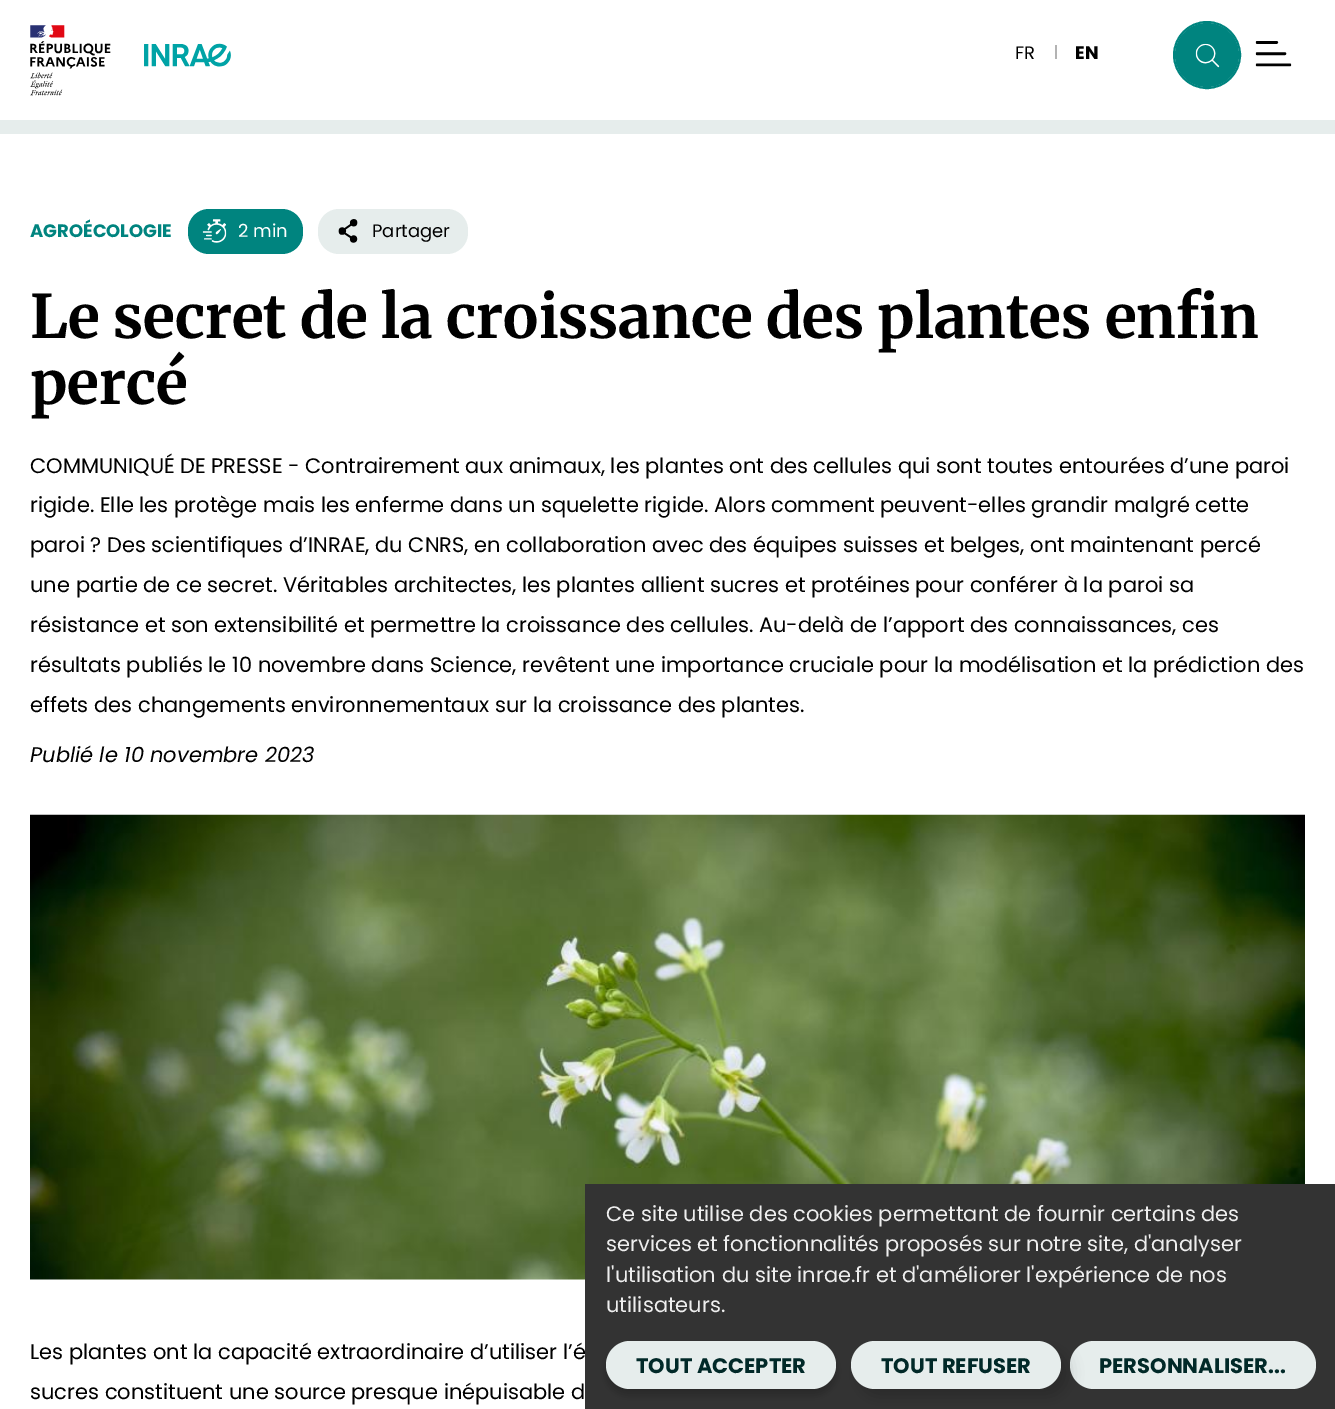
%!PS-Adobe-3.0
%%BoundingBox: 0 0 1335 1409
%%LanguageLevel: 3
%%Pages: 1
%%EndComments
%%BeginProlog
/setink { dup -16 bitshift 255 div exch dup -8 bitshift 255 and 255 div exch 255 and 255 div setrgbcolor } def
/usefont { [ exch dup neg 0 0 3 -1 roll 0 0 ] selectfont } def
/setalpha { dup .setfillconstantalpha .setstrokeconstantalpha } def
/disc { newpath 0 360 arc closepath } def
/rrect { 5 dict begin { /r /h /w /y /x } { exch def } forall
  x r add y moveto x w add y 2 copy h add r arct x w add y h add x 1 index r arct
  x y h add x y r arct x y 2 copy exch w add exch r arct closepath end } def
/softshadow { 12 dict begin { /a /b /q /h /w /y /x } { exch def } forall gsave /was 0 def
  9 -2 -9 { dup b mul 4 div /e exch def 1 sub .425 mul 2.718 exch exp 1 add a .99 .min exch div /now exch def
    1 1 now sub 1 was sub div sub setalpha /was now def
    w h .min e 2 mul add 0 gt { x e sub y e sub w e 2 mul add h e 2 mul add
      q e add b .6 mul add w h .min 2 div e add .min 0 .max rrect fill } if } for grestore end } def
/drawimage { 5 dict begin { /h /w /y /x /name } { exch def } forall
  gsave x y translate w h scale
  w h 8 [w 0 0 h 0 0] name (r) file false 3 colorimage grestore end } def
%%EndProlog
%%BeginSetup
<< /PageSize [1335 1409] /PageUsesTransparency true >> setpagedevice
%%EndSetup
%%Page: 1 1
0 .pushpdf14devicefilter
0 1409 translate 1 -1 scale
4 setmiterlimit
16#FFFFFF setink
0 0 1335 1409 rectfill
(img1.raw) 30 25 81 71 drawimage
(img2.raw) 144 43 87 24 drawimage
/Poppins-Regular 18 usefont
16#000000 setink
1015 59 moveto (FR) show
16#B3B3B3 setink
1055 45 2 14 rectfill
/Poppins-Bold 18 usefont
16#000000 setink
1075 59 moveto (EN) show
16#00847F setink
2 setlinewidth
1207 55 33 disc stroke
1207 55 32 disc fill
(img3.raw) 1195 43 25 25 drawimage
(img4.raw) 1255 41 37 26 drawimage
16#E6EDEC setink
0 120 1335 14 rectfill
16#00847F setink
30 237 moveto (AGROÉCOLOGIE) show
188 209 115 45 21 rrect fill
(img5.raw) 202 219 25 24 drawimage
/Poppins-Regular 18 usefont
16#FFFFFF setink
238 237 moveto (2 min) show
16#E6EDEC setink
318 209 150 45 21 rrect fill
(img6.raw) 338 219 20 24 drawimage
16#000000 setink
372 237 moveto (Partager) show
/Merriweather-Bold 60 usefont
30 338 moveto (Le secret de la croissance des plantes enfin) show
30 404 moveto (percé) show
/Poppins-Regular 21 usefont
[
    [(COMMUNIQUÉ DE PRESSE - Contrairement aux animaux, les plantes ont des cellules qui sont toutes entourées d’une paroi) 30 473]
    [(rigide. Elle les protège mais les enferme dans un squelette rigide. Alors comment peuvent-elles grandir malgré cette) 30 512]
    [(paroi ? Des scientifiques d’INRAE, du CNRS, en collaboration avec des équipes suisses et belges, ont maintenant percé) 30 552]
    [(une partie de ce secret. Véritables architectes, les plantes allient sucres et protéines pour conférer à la paroi sa) 30 592]
    [(résistance et son extensibilité et permettre la croissance des cellules. Au-delà de l’apport des connaissances, ces) 30 632]
    [(résultats publiés le 10 novembre dans Science, revêtent une importance cruciale pour la modélisation et la prédiction des) 30 672]
    [(effets des changements environnementaux sur la croissance des plantes.) 30 712]
] { aload pop moveto show } forall
/Poppins-Italic 21 usefont
30 762 moveto (Publié le 10 novembre 2023) show
(img7.raw) 30 814 1275 466 drawimage
/Poppins-Regular 21 usefont
30 1359 moveto (Les plantes ont la capacité extraordinaire d’utiliser l’é) show
30 1399 moveto (sucres constituent une source presque inépuisable d) show
16#333333 setink
585 1184 750 225 rectfill
16#EEEEEE setink
[
    [(Ce site utilise des cookies permettant de fournir certains des) 606 1221]
    [(services et fonctionnalités proposés sur notre site, d'analyser) 606 1251]
    [(l'utilisation du site inrae.fr et d'améliorer l'expérience de nos) 606 1282]
    [(utilisateurs.) 606 1312]
] { aload pop moveto show } forall
16#E6EDEC setink
1070 1341 246 48 24 rrect fill
/Poppins-Bold 21 usefont
16#012928 setink
1099 1373 moveto (PERSONNALISER...) show
16#000000 setink
606 1347 230 48 24 4.5 0.2 softshadow
16#E6EDEC setink
606 1341 230 48 24 rrect fill
16#012928 setink
636 1373 moveto (TOUT ACCEPTER) show
16#000000 setink
858 1349 210 48 24 7.5 0.19 softshadow
16#E6EDEC setink
851 1341 210 48 24 rrect fill
16#012928 setink
881 1373 moveto (TOUT REFUSER) show
.poppdf14devicefilter showpage
%%EOF
